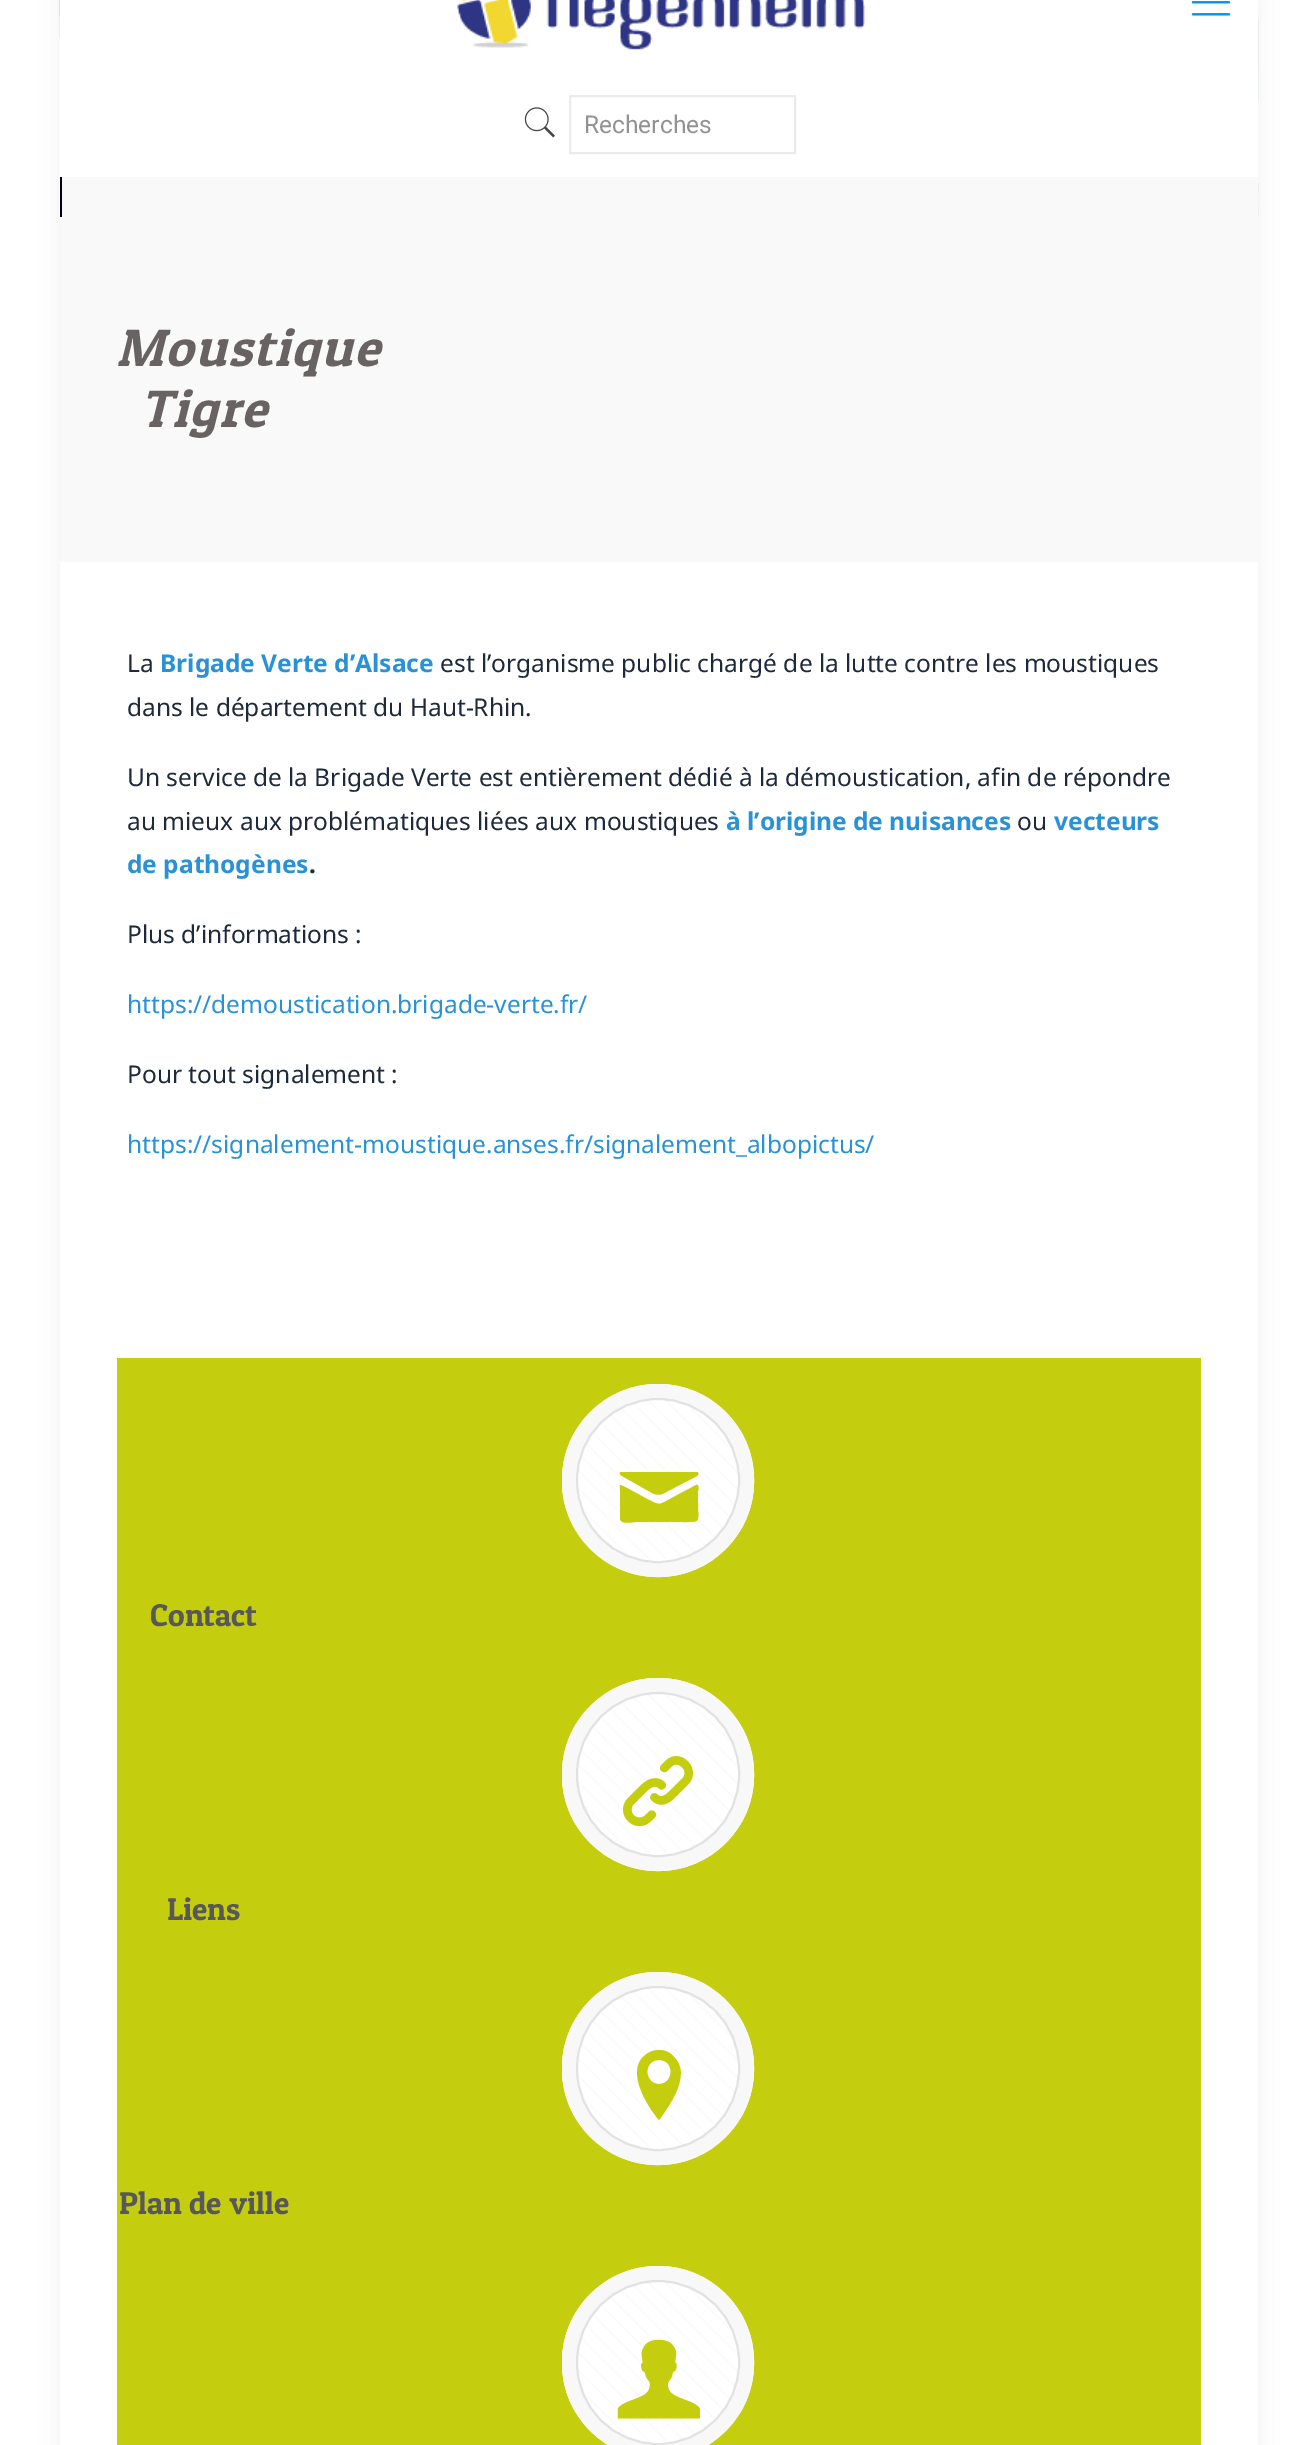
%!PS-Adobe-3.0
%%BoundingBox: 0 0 1315 2445
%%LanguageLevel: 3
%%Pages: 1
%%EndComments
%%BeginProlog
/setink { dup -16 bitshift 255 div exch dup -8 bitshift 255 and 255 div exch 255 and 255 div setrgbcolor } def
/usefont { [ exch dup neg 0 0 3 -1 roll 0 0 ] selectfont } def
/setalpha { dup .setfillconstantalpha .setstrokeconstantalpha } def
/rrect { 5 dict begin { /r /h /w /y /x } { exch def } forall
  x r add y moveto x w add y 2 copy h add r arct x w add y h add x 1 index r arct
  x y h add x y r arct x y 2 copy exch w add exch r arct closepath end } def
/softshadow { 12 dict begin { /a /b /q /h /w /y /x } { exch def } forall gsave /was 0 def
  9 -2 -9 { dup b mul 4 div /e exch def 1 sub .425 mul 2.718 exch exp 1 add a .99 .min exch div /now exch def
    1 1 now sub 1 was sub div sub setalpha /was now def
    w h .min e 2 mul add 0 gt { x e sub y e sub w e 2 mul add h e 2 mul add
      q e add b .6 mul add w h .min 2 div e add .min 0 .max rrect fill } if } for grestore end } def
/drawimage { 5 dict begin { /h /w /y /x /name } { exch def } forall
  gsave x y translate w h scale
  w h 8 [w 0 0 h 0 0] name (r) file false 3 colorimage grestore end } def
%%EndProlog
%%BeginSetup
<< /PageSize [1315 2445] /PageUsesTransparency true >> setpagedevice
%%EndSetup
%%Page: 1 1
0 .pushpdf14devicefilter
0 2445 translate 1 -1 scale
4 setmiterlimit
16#FFFFFF setink
0 0 1315 2445 rectfill
16#000000 setink
60 -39 1198 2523 0 13 0.06 softshadow
(img1.raw) 59 0 1200 217 drawimage
16#FFFFFF setink
60 0 1198 177 rectfill
(img2.raw) 457 0 408 50 drawimage
(img3.raw) 1191 1 40 15 drawimage
(img4.raw) 524 107 31 31 drawimage
16#EBEBEB setink
2 setlinewidth
570 96 225 57 rectstroke
/Roboto-Regular 24.5 usefont
16#929292 setink
584 133 moveto (Recherches) show
16#F9F9F9 setink
62 177 1196 385 rectfill
/PatuaOne-Italic 52.5 usefont
16#696262 setink
116 366 moveto 1.75 0 (Moustique) ashow
140 427 moveto 1.75 0 (Tigre) ashow
16#FFFFFF setink
60 562 1198 1883 rectfill
/NotoSans-Regular 24.5 usefont
16#1E293B setink
127 672 moveto (La) show
/NotoSans-Bold 24.5 usefont
16#2991D6 setink
160 672 moveto (Brigade Verte d’Alsace) show
/NotoSans-Regular 24.5 usefont
16#1E293B setink
[
    [(est l’organisme public chargé de la lutte contre les moustiques) 440 672]
    [(dans le département du Haut-Rhin.) 127 716]
    [(Un service de la Brigade Verte est entièrement dédié à la démoustication, afin de répondre) 127 786]
    [(au mieux aux problématiques liées aux moustiques) 127 830]
] { aload pop moveto show } forall
/NotoSans-Bold 24.5 usefont
16#2991D6 setink
726 830 moveto (à l’origine de nuisances) show
/NotoSans-Regular 24.5 usefont
16#1E293B setink
1017 830 moveto (ou) show
/NotoSans-Bold 24.5 usefont
16#2991D6 setink
1054 830 moveto (vecteurs) show
127 873 moveto (de pathogènes) show
16#1E293B setink
309 873 moveto (.) show
/NotoSans-Regular 24.5 usefont
127 943 moveto (Plus d’informations :) show
16#2991D6 setink
127 1013 moveto (https://demoustication.brigade-verte.fr/) show
16#1E293B setink
127 1083 moveto (Pour tout signalement :) show
16#2991D6 setink
127 1153 moveto (https://signalement-moustique.anses.fr/signalement_albopictus/) show
16#C4CE0E setink
117 1358 1084 1087 rectfill
16#FFFFFF setink
562 1384 192 193 96 rrect fill
(img5.raw) 576 1400 164 159 drawimage
16#F8F8F8 setink
14 setlinewidth
569 1391 178 179 89 rrect stroke
16#E2E2E2 setink
2 setlinewidth
577 1399 162 163 81 rrect stroke
16#C4CE0E setink
622 1476 moveto 620 1475 618 1472 622 1472 curveto 696 1472 lineto 699 1472 699 1474 697 1476 curveto 668 1491 lineto 661 1495 659 1496 652 1493 curveto closepath 696 1485 moveto 700 1484 698 1491 698 1491 curveto 698 1502 lineto 698 1523 702 1522 682 1522 curveto 636 1522 lineto 633 1522 621 1525 620 1519 curveto 620 1491 lineto 620 1483 618 1484 627 1488 curveto 649 1500 lineto 659 1505 659 1505 668 1500 curveto closepath fill
/PatuaOne-Regular 31.5 usefont
16#58585A setink
150 1626 moveto (Contact) show
16#FFFFFF setink
562 1678 192 193 96 rrect fill
(img6.raw) 576 1694 164 159 drawimage
16#F8F8F8 setink
14 setlinewidth
569 1685 178 179 89 rrect stroke
16#E2E2E2 setink
2 setlinewidth
577 1693 162 163 81 rrect stroke
(img7.raw) 623 1756 70 71 drawimage
16#58585A setink
167 1920 moveto (Liens) show
16#FFFFFF setink
562 1972 192 193 96 rrect fill
(img6.raw) 576 1988 164 159 drawimage
16#F8F8F8 setink
14 setlinewidth
569 1979 178 179 89 rrect stroke
16#E2E2E2 setink
2 setlinewidth
577 1987 162 163 81 rrect stroke
16#C4CE0E setink
659 2050 moveto 665 2050 670 2052 674 2057 curveto 692 2074 670 2105 659 2120 curveto 647 2106 627 2073 643 2057 curveto 648 2052 653 2050 659 2050 curveto closepath 659 2084 moveto 674 2084 675 2060 659 2060 curveto 643 2060 644 2084 659 2084 curveto closepath fill
16#58585A setink
119 2214 moveto (Plan de ville) show
16#FFFFFF setink
562 2266 192 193 96 rrect fill
(img8.raw) 576 2282 164 159 drawimage
16#F8F8F8 setink
14 setlinewidth
569 2273 178 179 89 rrect stroke
16#E2E2E2 setink
2 setlinewidth
577 2281 162 163 81 rrect stroke
(img9.raw) 617 2339 83 80 drawimage
.poppdf14devicefilter showpage
%%EOF
